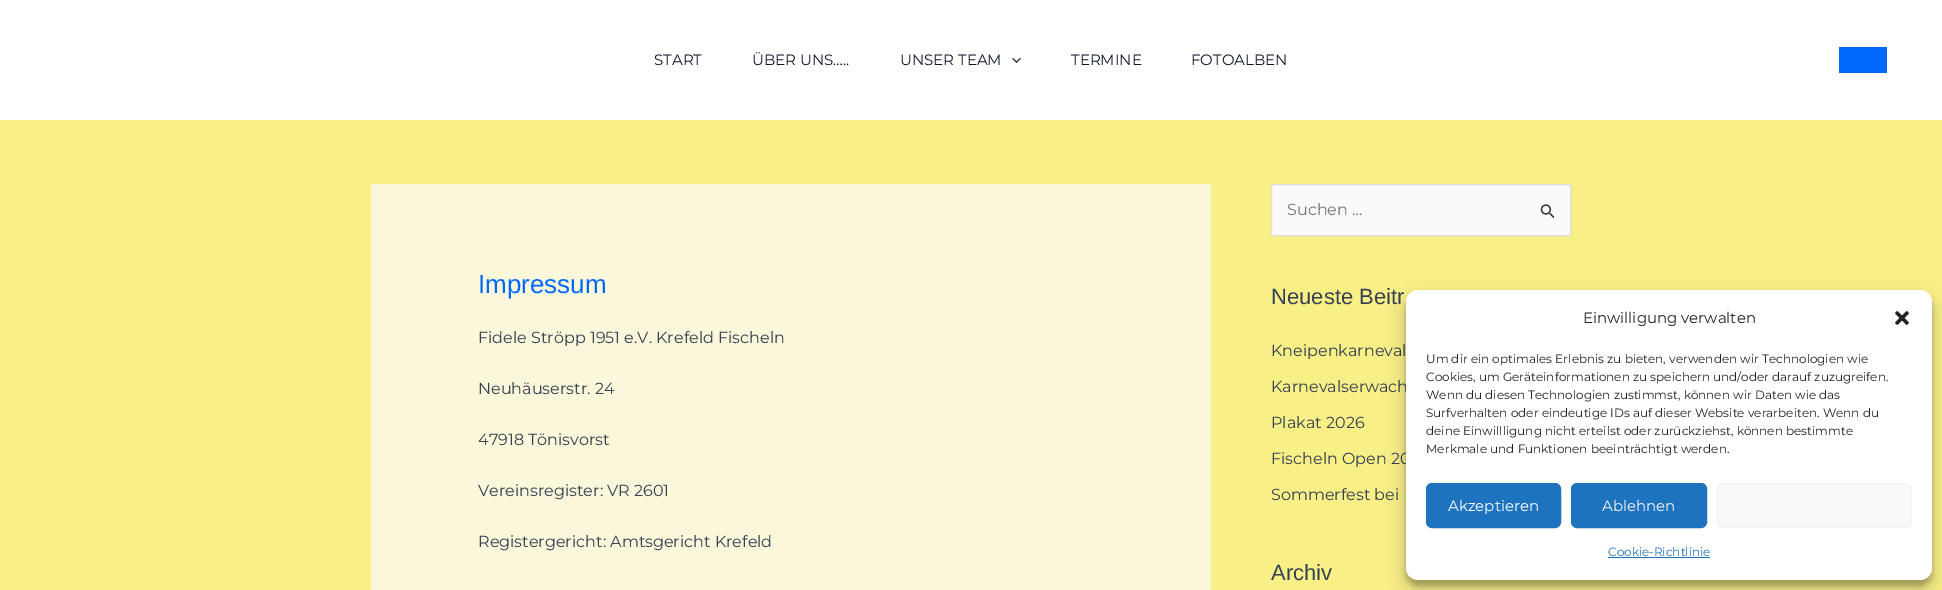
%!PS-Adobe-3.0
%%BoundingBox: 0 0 1942 590
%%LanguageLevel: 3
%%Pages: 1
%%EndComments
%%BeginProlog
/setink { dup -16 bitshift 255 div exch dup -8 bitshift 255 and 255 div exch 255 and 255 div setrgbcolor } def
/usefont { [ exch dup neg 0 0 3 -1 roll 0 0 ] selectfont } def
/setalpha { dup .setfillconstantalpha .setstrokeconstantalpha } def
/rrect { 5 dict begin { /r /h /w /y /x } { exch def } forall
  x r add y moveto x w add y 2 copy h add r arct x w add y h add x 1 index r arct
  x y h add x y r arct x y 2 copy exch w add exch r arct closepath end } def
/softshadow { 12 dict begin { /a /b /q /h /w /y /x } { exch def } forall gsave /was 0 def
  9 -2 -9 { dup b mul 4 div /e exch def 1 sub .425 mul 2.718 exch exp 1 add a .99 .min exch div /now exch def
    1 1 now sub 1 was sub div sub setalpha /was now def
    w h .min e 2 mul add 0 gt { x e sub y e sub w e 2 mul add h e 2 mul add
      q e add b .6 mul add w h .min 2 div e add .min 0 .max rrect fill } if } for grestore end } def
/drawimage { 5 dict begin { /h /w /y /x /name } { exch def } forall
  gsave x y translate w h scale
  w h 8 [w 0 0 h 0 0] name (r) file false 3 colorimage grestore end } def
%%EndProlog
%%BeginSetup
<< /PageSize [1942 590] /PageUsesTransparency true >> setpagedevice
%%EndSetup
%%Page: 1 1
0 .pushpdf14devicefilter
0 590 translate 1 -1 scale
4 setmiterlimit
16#F8EF87 setink
0 0 1942 590 rectfill
16#FFFFFF setink
0 0 1942 120 rectfill
/Montserrat-Thin 15 usefont
16#0F172A setink
[
    [(START) 654 65]
    [(ÜBER UNS…..) 752 65]
    [(UNSER TEAM) 900 65]
] { aload pop moveto show } forall
(img1.raw) 1012 58 9 5 drawimage
1071 65 moveto (TERMINE) show
1191 65 moveto (FOTOALBEN) show
16#0067FF setink
1839 47 48 26 rectfill
16#FAF7DA setink
371 184 840 406 rectfill
/LiberationSans-Regular 26 usefont
16#0067FF setink
478 293 moveto (Impressum) show
/Montserrat-Thin 16 usefont
16#364151 setink
[
    [(Fidele Ströpp 1951 e.V. Krefeld Fischeln) 478 343]
    [(Neuhäuserstr. 24) 478 394]
    [(47918 Tönisvorst) 478 445]
    [(Vereinsregister: VR 2601) 478 496]
    [(Registergericht: Amtsgericht Krefeld) 478 547]
] { aload pop moveto show } forall
16#FAFAFA setink
1271.5 184.5 299 51 1.5 rrect gsave fill grestore
16#DDDDDD setink
stroke
16#757575 setink
1287 215 moveto (Suchen …) show
(img2.raw) 1540 204 14 15 drawimage
/LiberationSans-Regular 22 usefont
16#364151 setink
1271 304 moveto (Neueste Beitr) show
/Montserrat-Thin 16 usefont
[
    [(Kneipenkarneval) 1271 356]
    [(Karnevalserwach) 1271 392]
    [(Plakat 2026) 1271 428]
    [(Fischeln Open 20) 1271 464]
    [(Sommerfest bei) 1271 500]
] { aload pop moveto show } forall
/LiberationSans-Regular 22 usefont
1271 580 moveto (Archiv) show
16#000000 setink
1406 296 526 290 12 3 0.23 softshadow
1406 300 526 290 12 10 0.19 softshadow
16#FFFFFF setink
1406 290 526 290 12 rrect fill
/Montserrat-Thin 15 usefont
16#222222 setink
1583 323 moveto (Einwilligung verwalten) show
(img3.raw) 1895 311 14 14 drawimage
/Montserrat-Thin 12 usefont
[
    [(Um dir ein optimales Erlebnis zu bieten, verwenden wir Technologien wie) 1426 363]
    [(Cookies, um Geräteinformationen zu speichern und/oder darauf zuzugreifen.) 1426 381]
    [(Wenn du diesen Technologien zustimmst, können wir Daten wie das) 1426 399]
    [(Surfverhalten oder eindeutige IDs auf dieser Website verarbeiten. Wenn du) 1426 417]
    [(deine Einwillligung nicht erteilst oder zurückziehst, können bestimmte) 1426 435]
    [(Merkmale und Funktionen beeinträchtigt werden.) 1426 453]
] { aload pop moveto show } forall
16#1E73BE setink
1426.5 483.5 134 44 5.5 rrect gsave fill grestore
stroke
/Montserrat-Thin 15 usefont
16#FFFFFF setink
1448 511 moveto (Akzeptieren) show
16#1E73BE setink
1571.5 483.5 135 44 5.5 rrect gsave fill grestore
stroke
16#F5F5F2 setink
1602 511 moveto (Ablehnen) show
16#F9F9F9 setink
1717.5 483.5 194 44 5.5 rrect gsave fill grestore
16#F2F2F2 setink
stroke
/Montserrat-Thin 12 usefont
16#1E73BE setink
1608 556 moveto (Cookie-Richtlinie) show
1608 557 102 1 rectfill
.poppdf14devicefilter showpage
%%EOF
